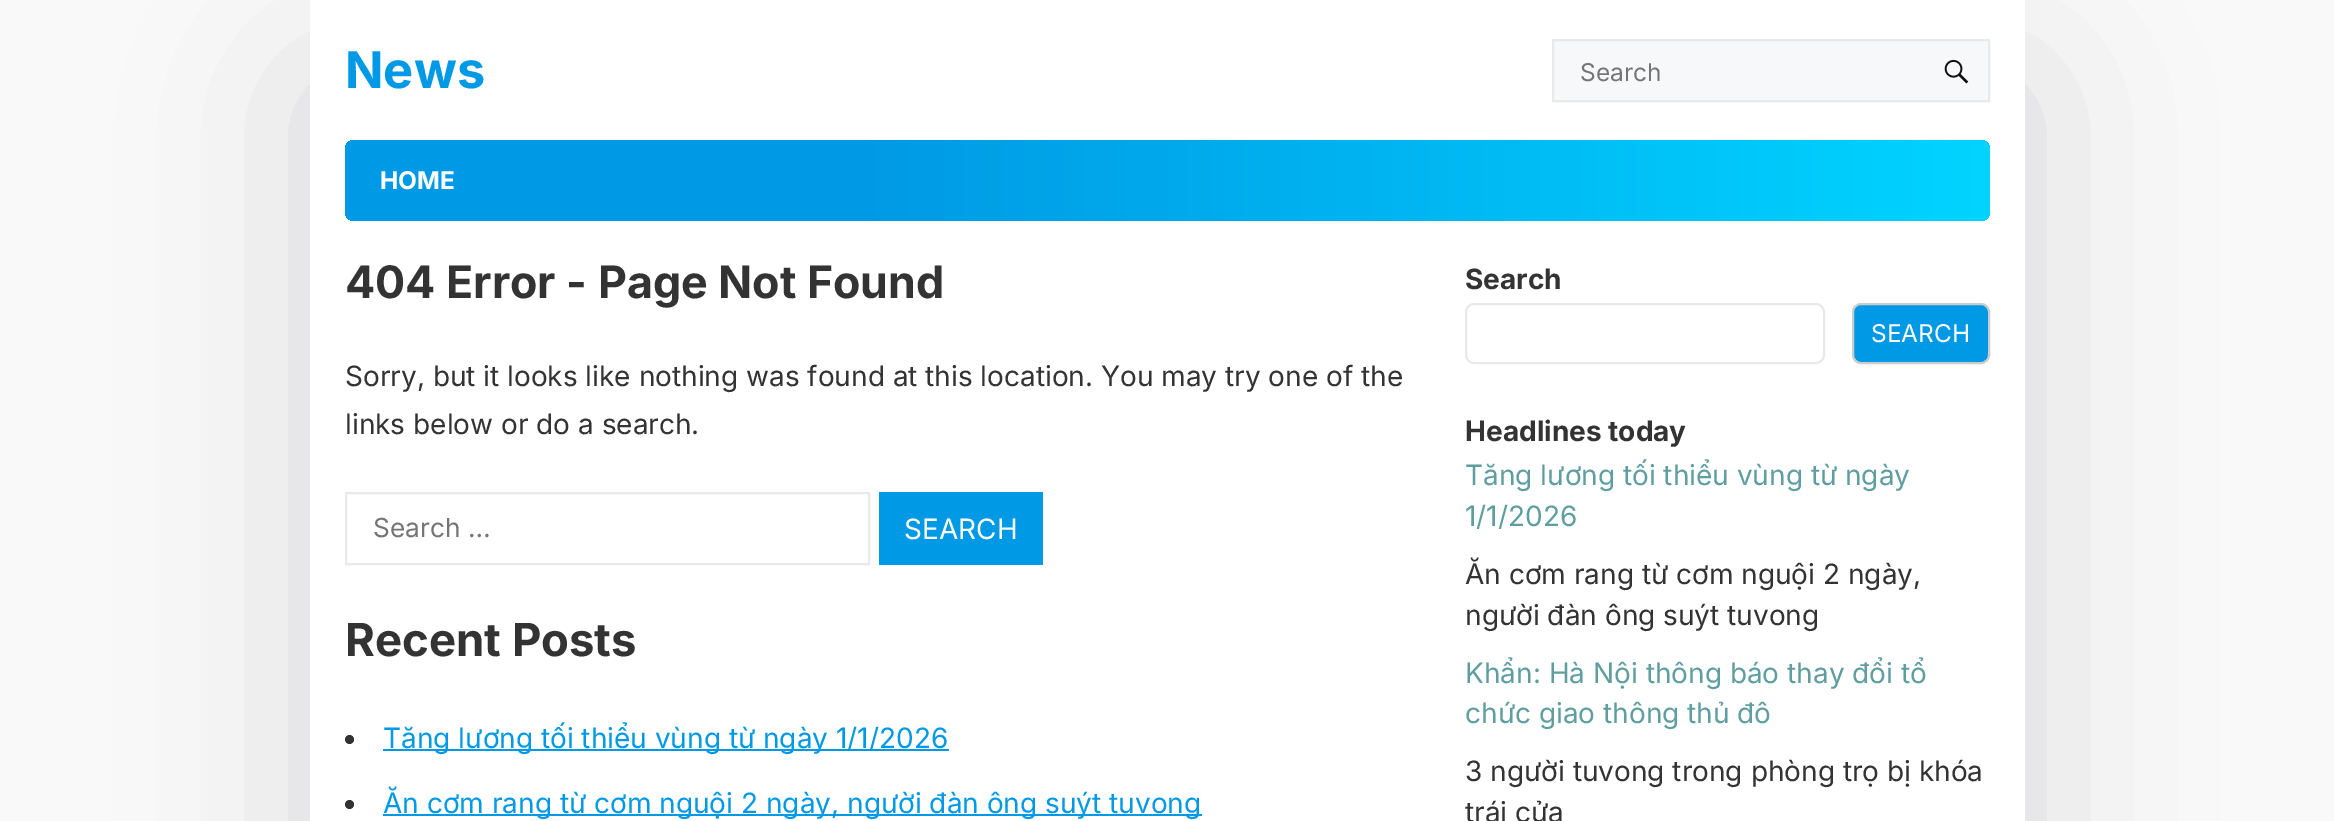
%!PS-Adobe-3.0
%%BoundingBox: 0 0 2334 821
%%LanguageLevel: 3
%%Pages: 1
%%EndComments
%%BeginProlog
/setink { dup -16 bitshift 255 div exch dup -8 bitshift 255 and 255 div exch 255 and 255 div setrgbcolor } def
/usefont { [ exch dup neg 0 0 3 -1 roll 0 0 ] selectfont } def
/setalpha { dup .setfillconstantalpha .setstrokeconstantalpha } def
/disc { newpath 0 360 arc closepath } def
/rrect { 5 dict begin { /r /h /w /y /x } { exch def } forall
  x r add y moveto x w add y 2 copy h add r arct x w add y h add x 1 index r arct
  x y h add x y r arct x y 2 copy exch w add exch r arct closepath end } def
/softshadow { 12 dict begin { /a /b /q /h /w /y /x } { exch def } forall gsave /was 0 def
  9 -2 -9 { dup b mul 4 div /e exch def 1 sub .425 mul 2.718 exch exp 1 add a .99 .min exch div /now exch def
    1 1 now sub 1 was sub div sub setalpha /was now def
    w h .min e 2 mul add 0 gt { x e sub y e sub w e 2 mul add h e 2 mul add
      q e add b .6 mul add w h .min 2 div e add .min 0 .max rrect fill } if } for grestore end } def
/drawimage { 5 dict begin { /h /w /y /x /name } { exch def } forall
  gsave x y translate w h scale
  w h 8 [w 0 0 h 0 0] name (r) file false 3 colorimage grestore end } def
%%EndProlog
%%BeginSetup
<< /PageSize [2334 821] /PageUsesTransparency true >> setpagedevice
%%EndSetup
%%Page: 1 1
0 .pushpdf14devicefilter
0 821 translate 1 -1 scale
4 setmiterlimit
16#F9F9F9 setink
0 0 2334 821 rectfill
16#110C2E setink
310 84 1715 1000 0 87.5 0.15 softshadow
16#FFFFFF setink
310 0 1715 821 rectfill
/Inter-Bold 50.5 usefont
16#0099E5 setink
345 88 moveto (News) show
16#F7F8F9 setink
1553 40 moveto 1989 40 lineto 1989 101 lineto 1553 101 lineto closepath gsave fill grestore
16#E9E9E9 setink
2 setlinewidth
stroke
/Inter-Regular 24.5 usefont
16#757575 setink
1580 81 moveto (Search) show
(img1.raw) 1944 59 25 25 drawimage
gsave 345 140 1645 81 9 rrect clip newpath
<< /ShadingType 2 /ColorSpace /DeviceRGB /Coords [345 180 1990 180] /Extend [true true] /Function << /FunctionType 3 /Domain [0 1] /Functions [<< /FunctionType 2 /Domain [0 1] /C0 [0 0.6 0.898] /C1 [0 0.6 0.898] /N 1 >> << /FunctionType 2 /Domain [0 1] /C0 [0 0.6 0.898] /C1 [0 0.831 1] /N 1 >>] /Bounds [0.31] /Encode [0 1 0 1] >> >> shfill grestore
/Inter-Bold 24.5 usefont
16#FFFFFF setink
380 189 moveto (HOME) show
/Inter-Bold 44.75 usefont
16#333333 setink
345 298 moveto (404 Error - Page Not Found) show
/Inter-Regular 28 usefont
345 386 moveto (Sorry, but it looks like nothing was found at this location. You may try one of the) show
345 434 moveto (links below or do a search.) show
16#E9E9E9 setink
346 493 523 71 rectstroke
/Inter-Regular 26.25 usefont
16#757575 setink
373 537 moveto (Search …) show
16#0099E5 setink
879 492 164 73 rectfill
/Inter-Regular 28 usefont
16#FFFFFF setink
904 539 moveto (SEARCH) show
/Inter-Bold 45.5 usefont
16#333333 setink
345 656 moveto (Recent Posts) show
349.5 739.5 4.5 disc fill
16#0099E5 setink
383 749 566 2 rectfill
/Inter-Regular 28 usefont
383 748 moveto (Tăng lương tối thiểu vùng từ ngày 1/1/2026) show
16#333333 setink
349.5 804.5 4.5 disc fill
16#0099E5 setink
383 814 819 2 rectfill
383 813 moveto (Ăn cơm rang từ cơm nguội 2 ngày, người đàn ông suýt tuvong) show
/Inter-Bold 28 usefont
16#333333 setink
1465 289 moveto (Search) show
16#E9E9E9 setink
1466 304 358 59 8 rrect stroke
16#0099E5 setink
1853 304 136 59 8 rrect gsave fill grestore
16#CCCCCC setink
stroke
/Inter-Regular 24.5 usefont
16#FFFFFF setink
1871 342 moveto (SEARCH) show
/Inter-Bold 28 usefont
16#333333 setink
1465 441 moveto (Headlines today) show
/Inter-Regular 28 usefont
16#5F9EA0 setink
1465 485 moveto (Tăng lương tối thiểu vùng từ ngày) show
1465 526 moveto (1/1/2026) show
16#333333 setink
1465 584 moveto (Ăn cơm rang từ cơm nguội 2 ngày,) show
1465 625 moveto (người đàn ông suýt tuvong) show
16#5F9EA0 setink
1465 683 moveto (Khẩn: Hà Nội thông báo thay đổi tổ) show
1465 723 moveto (chức giao thông thủ đô) show
16#333333 setink
1465 781 moveto (3 người tuvong trong phòng trọ bị khóa) show
1465 822 moveto (trái cửa) show
.poppdf14devicefilter showpage
%%EOF
